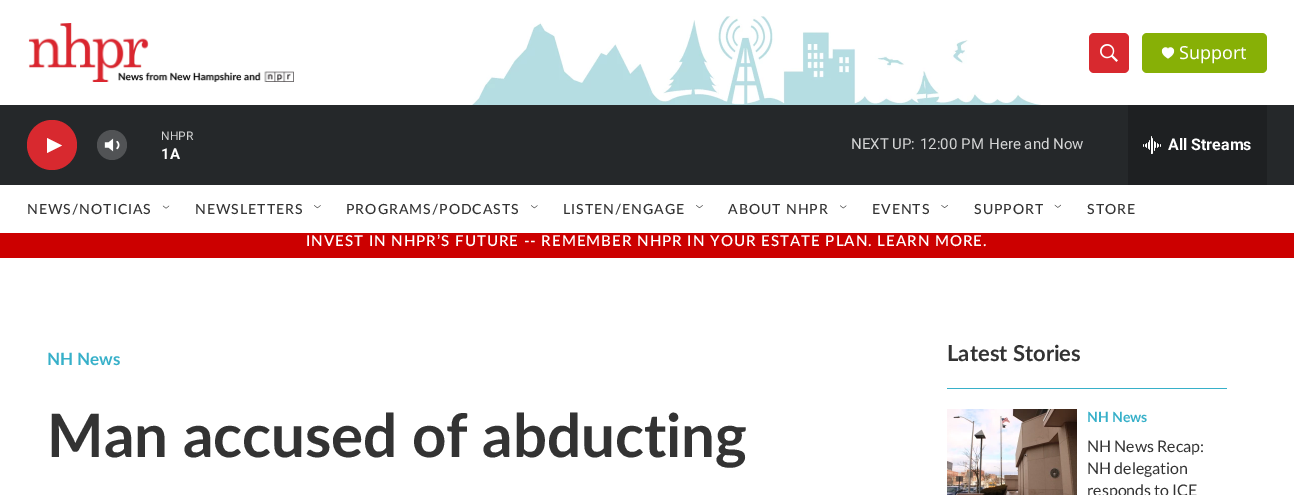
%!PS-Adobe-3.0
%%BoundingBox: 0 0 1294 495
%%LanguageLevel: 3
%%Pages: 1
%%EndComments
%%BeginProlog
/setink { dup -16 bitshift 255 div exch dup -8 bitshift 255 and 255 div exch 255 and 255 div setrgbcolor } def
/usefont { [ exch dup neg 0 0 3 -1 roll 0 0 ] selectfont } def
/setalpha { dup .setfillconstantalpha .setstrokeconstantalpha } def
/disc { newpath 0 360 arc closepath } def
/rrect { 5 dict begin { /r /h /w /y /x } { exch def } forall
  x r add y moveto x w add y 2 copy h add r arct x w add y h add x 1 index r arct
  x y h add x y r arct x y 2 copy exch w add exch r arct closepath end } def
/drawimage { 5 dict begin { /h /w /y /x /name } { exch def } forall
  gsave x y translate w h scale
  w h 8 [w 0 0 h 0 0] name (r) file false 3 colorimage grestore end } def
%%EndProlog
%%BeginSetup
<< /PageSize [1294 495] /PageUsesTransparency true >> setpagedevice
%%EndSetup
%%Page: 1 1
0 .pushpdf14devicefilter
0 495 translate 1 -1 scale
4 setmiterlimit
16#FFFFFF setink
0 0 1294 495 rectfill
(img1.raw) 472 16 569 89 drawimage
(img2.raw) 28 23 266 59 drawimage
16#D8292F setink
1089 33 40 40 5 rrect fill
(img3.raw) 1100 44 18 18 drawimage
16#87B006 setink
1142 33 125 40 5 rrect fill
16#FFFFFF setink
1168 49 moveto 1166 44 1155.5 51 1168 58.5 curveto 1180.5 51 1170 44 1168 49 curveto closepath fill
/NotoSans-Regular 18 usefont
1179 59 moveto (Support) show
16#25282A setink
0 105 1294 80 rectfill
16#D8292F setink
52 145 25 disc fill
16#FFFFFF setink
47 138 moveto 62 145.5 lineto 47 153 lineto closepath fill
(img4.raw) 104 138 16 14 drawimage
0.2 setalpha
112 145 15 disc fill
/Roboto-Regular 12 usefont
1 setalpha
16#D3D4D4 setink
161 140 moveto (NHPR) show
/Roboto-Bold 15 usefont
16#FFFFFF setink
161 159 moveto (1A) show
/Roboto-Regular 15 usefont
16#D3D4D4 setink
[
    [(NEXT UP:) 851 149]
    [(12:00 PM) 920 149]
    [(Here and Now) 989 149]
] { aload pop moveto show } forall
16#1E2022 setink
1128 105 139 80 rectfill
(img5.raw) 1143 136 18 18 drawimage
/Roboto-Bold 16 usefont
16#FFFFFF setink
1168 150 moveto (All Streams) show
/Lato-Medium 14 usefont
16#333333 setink
27 214 moveto 1 0 (NEWS/NOTICIAS) ashow
(img6.raw) 162 205 8 4 drawimage
195 214 moveto 1 0 (NEWSLETTERS) ashow
(img7.raw) 314 205 7 4 drawimage
346 214 moveto 1 0 (PROGRAMS/PODCASTS) ashow
(img8.raw) 531 205 7 4 drawimage
563 214 moveto 1 0 (LISTEN/ENGAGE) ashow
(img9.raw) 696 205 7 4 drawimage
728 214 moveto 1 0 (ABOUT NHPR) ashow
(img10.raw) 840 205 7 4 drawimage
872 214 moveto 1 0 (EVENTS) ashow
(img11.raw) 941 205 7 3 drawimage
974 214 moveto 1 0 (SUPPORT) ashow
(img12.raw) 1054 204 7 4 drawimage
1087 214 moveto 1 0 (STORE) ashow
16#CC0000 setink
0 233 1294 25 rectfill
/Lato-SemiBold 15 usefont
16#FFFFFF setink
306 246 moveto 1 0 (INVEST IN NHPR’S FUTURE -- REMEMBER NHPR IN YOUR ESTATE PLAN. LEARN MORE.) ashow
/Lato-Bold 17 usefont
16#37B0C9 setink
47 365 moveto (NH News) show
/Lato-Bold 60 usefont
16#333333 setink
47 457 moveto (Man accused of abducting) show
16#37B0C9 setink
947 388 280 1 rectfill
/Lato-Bold 22 usefont
16#333333 setink
947 361 moveto (Latest Stories) show
(img13.raw) 947 409 130 86 drawimage
/Lato-Bold 14 usefont
16#37B0C9 setink
1087 422 moveto (NH News) show
/Lato-Regular 16 usefont
16#333333 setink
[
    [(NH News Recap:) 1087 452]
    [(NH delegation) 1087 474]
    [(responds to ICE) 1087 496]
] { aload pop moveto show } forall
.poppdf14devicefilter showpage
%%EOF
